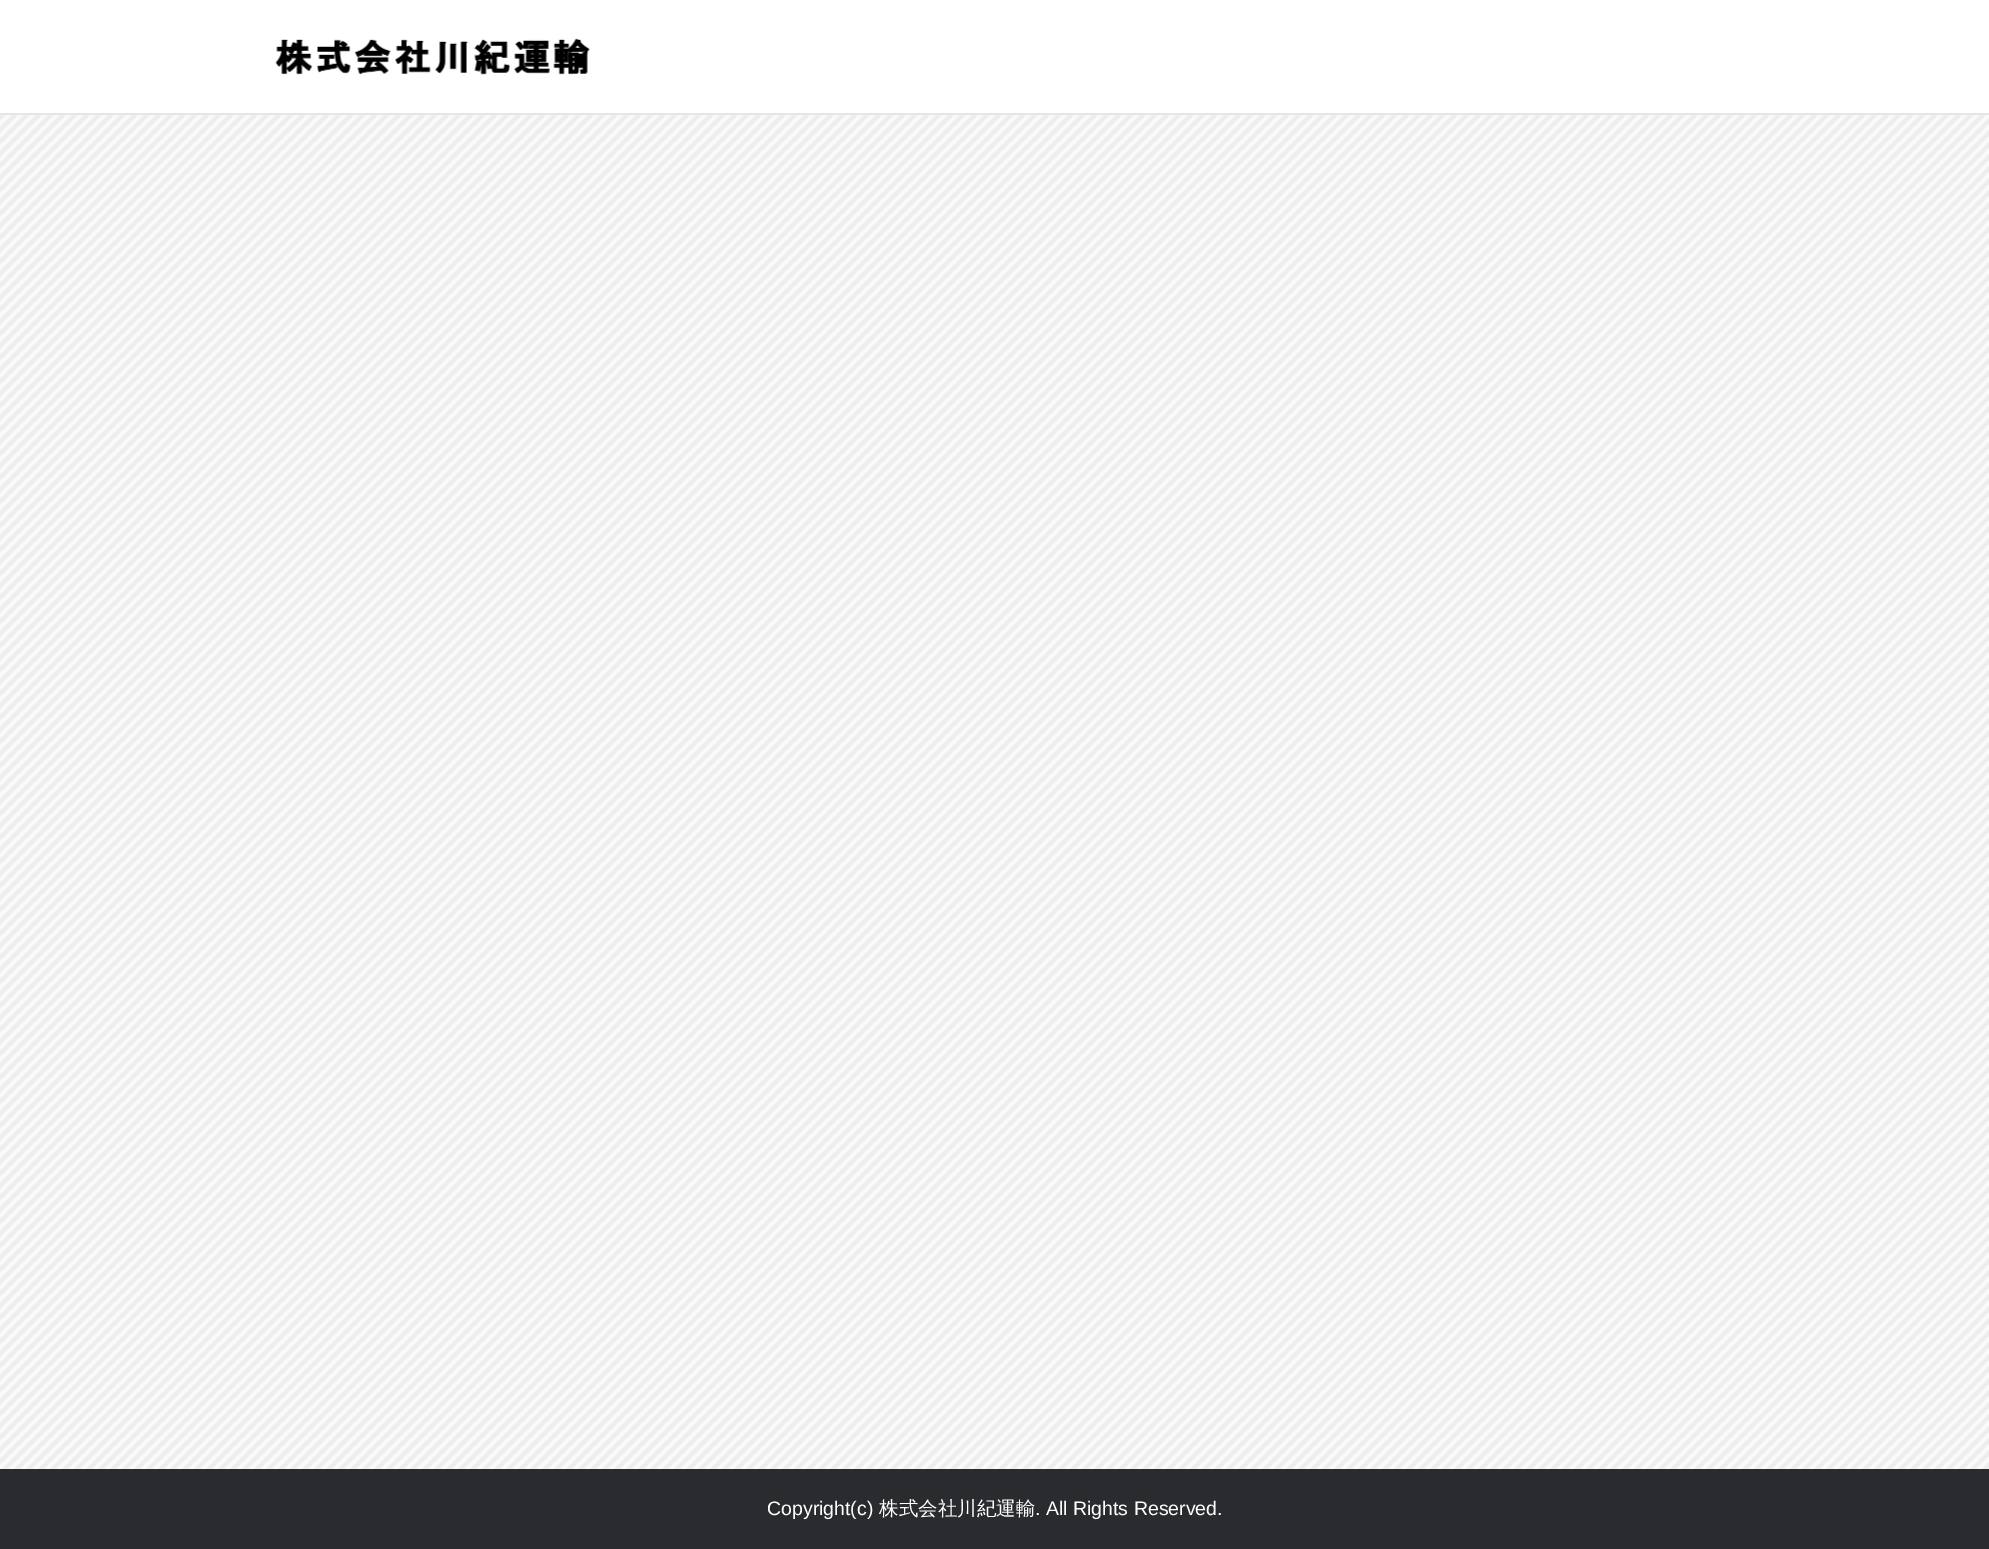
%!PS-Adobe-3.0
%%BoundingBox: 0 0 1989 1549
%%LanguageLevel: 3
%%Pages: 1
%%EndComments
%%BeginProlog
/setink { dup -16 bitshift 255 div exch dup -8 bitshift 255 and 255 div exch 255 and 255 div setrgbcolor } def
/usefont { [ exch dup neg 0 0 3 -1 roll 0 0 ] selectfont } def
/drawimage { 5 dict begin { /h /w /y /x /name } { exch def } forall
  gsave x y translate w h scale
  w h 8 [w 0 0 h 0 0] name (r) file false 3 colorimage grestore end } def
%%EndProlog
%%BeginSetup
<< /PageSize [1989 1549] >> setpagedevice
%%EndSetup
%%Page: 1 1
0 1549 translate 1 -1 scale
4 setmiterlimit
16#FFFFFF setink
0 0 1989 1549 rectfill
(img1.raw) 0 115 1989 1354 drawimage
16#E6E6E6 setink
0 113 1989 2 rectfill
(img2.raw) 275 38 315 37 drawimage
16#2A2B2E setink
0 1469 1989 80 rectfill
/LiberationSans-Regular 19.5 usefont
16#FFFFFF setink
767 1515 moveto (Copyright\(c\)) show
/WenQuanYiZenHei-Medium 19.5 usefont
879 1515 moveto (株式会社川紀運輸) show
/LiberationSans-Regular 19.5 usefont
1035 1515 moveto (. All Rights Reserved.) show
showpage
%%EOF
